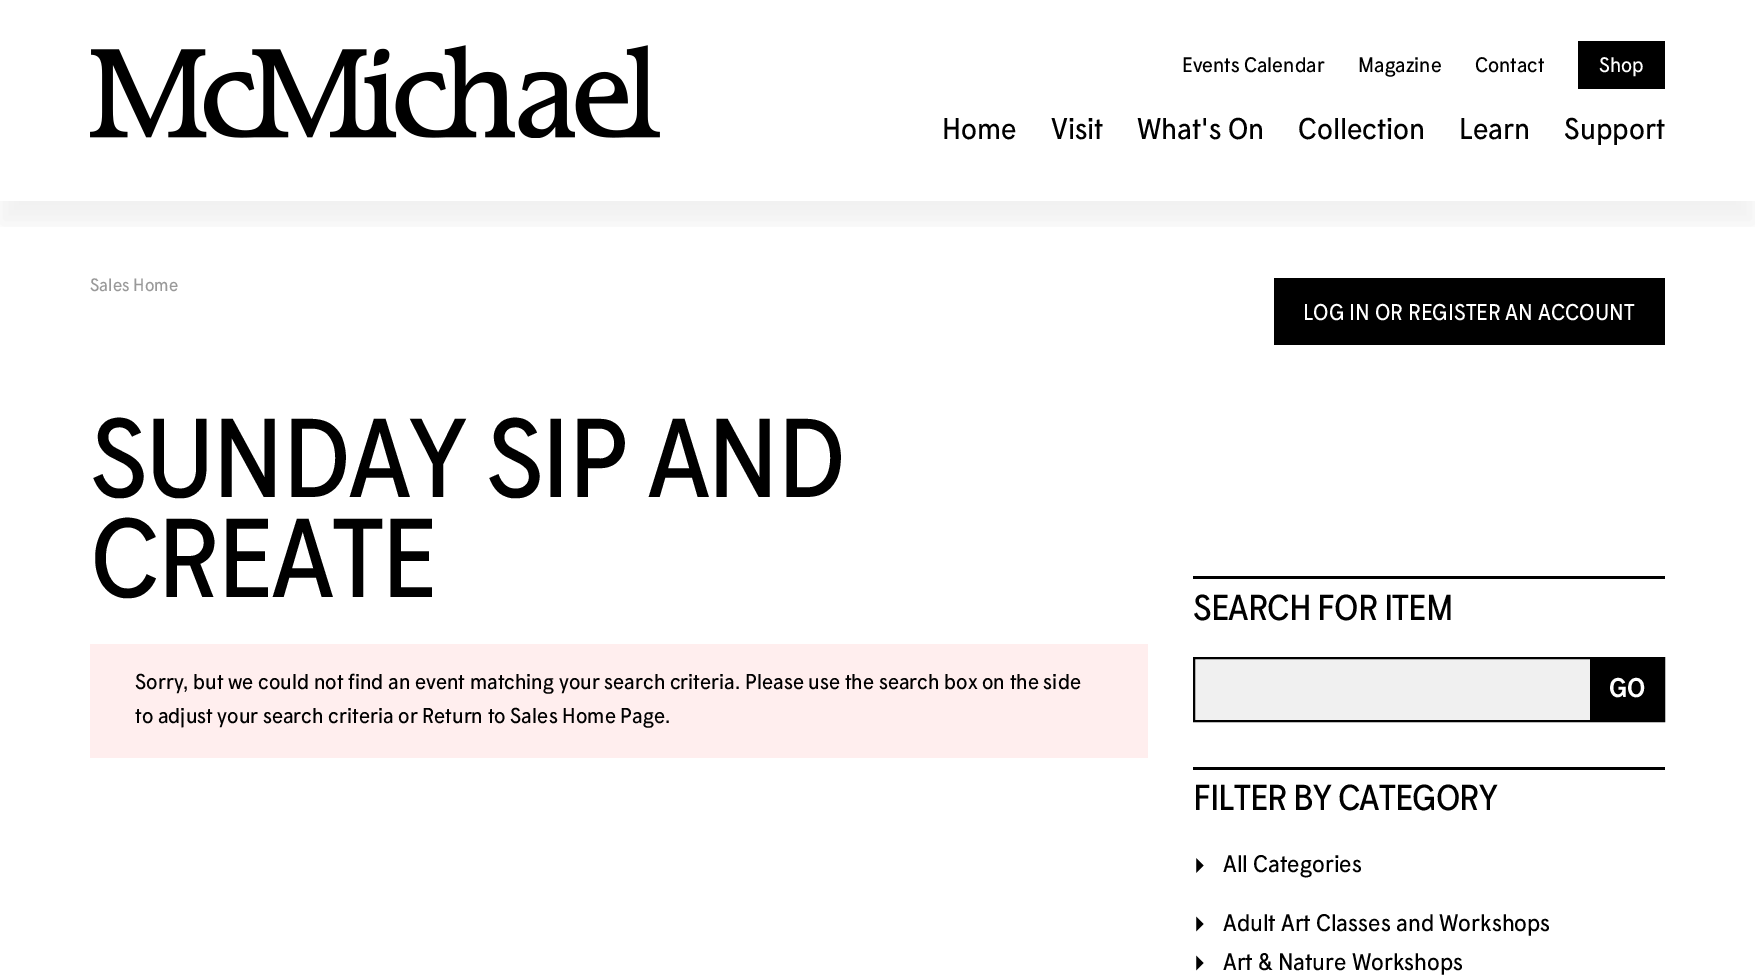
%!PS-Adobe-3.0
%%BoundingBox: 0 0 1755 979
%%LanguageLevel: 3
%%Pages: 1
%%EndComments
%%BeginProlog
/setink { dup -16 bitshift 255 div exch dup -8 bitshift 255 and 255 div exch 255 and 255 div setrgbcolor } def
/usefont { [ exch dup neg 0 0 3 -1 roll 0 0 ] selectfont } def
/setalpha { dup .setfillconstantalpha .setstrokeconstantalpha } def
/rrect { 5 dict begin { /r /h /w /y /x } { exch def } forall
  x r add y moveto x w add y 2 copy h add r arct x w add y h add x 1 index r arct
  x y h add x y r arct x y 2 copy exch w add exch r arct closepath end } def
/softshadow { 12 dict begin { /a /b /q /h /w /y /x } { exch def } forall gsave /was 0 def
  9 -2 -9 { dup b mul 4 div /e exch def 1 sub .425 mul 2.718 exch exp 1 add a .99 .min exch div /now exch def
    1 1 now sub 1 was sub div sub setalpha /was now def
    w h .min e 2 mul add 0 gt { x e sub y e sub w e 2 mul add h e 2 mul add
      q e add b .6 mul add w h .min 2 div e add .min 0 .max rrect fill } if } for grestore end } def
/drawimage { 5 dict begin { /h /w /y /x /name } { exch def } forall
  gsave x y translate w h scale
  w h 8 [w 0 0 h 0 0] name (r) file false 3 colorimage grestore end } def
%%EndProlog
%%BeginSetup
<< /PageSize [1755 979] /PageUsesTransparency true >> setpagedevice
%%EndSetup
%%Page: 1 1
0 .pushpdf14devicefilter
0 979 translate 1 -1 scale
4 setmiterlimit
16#FFFFFF setink
0 0 1755 979 rectfill
gsave
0 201 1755 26 rectclip
16#000000 setink
0 23 1755 201 0 11 0.05 softshadow
grestore
(img1.raw) 90 45 570 93 drawimage
/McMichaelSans-Regular 21 usefont
16#000000 setink
[
    [(Events Calendar) 1182 72]
    [(Magazine) 1358 72]
    [(Contact) 1475 72]
] { aload pop moveto show } forall
1578 41 87 48 rectfill
16#FFFFFF setink
1599 72 moveto (Shop) show
/McMichaelSans-Regular 30 usefont
16#000000 setink
[
    [(Home) 942 139]
    [(Visit) 1051 139]
    [(What's On) 1137 139]
    [(Collection) 1298 139]
    [(Learn) 1459 139]
    [(Support) 1564 139]
] { aload pop moveto show } forall
/McMichaelSans-Regular 18 usefont
16#999999 setink
90 291 moveto (Sales Home) show
/McMichaelSans-Regular 111.75 usefont
16#000000 setink
90 497 moveto -2.75 0 (SUNDAY SIP AND) ashow
90 597 moveto -2.75 0 (CREATE) ashow
16#FFEEEE setink
90 644 1058 114 rectfill
/McMichaelSans-Regular 21.6 usefont
16#000000 setink
[
    [(Sorry, but we could not find an event matching your search criteria.) 135 689]
    [(Please use the search box on the side) 745 689]
    [(to adjust your search criteria or Return to Sales Home Page) 135 723]
    [(.) 665 723]
] { aload pop moveto show } forall
1274 278 391 67 rectfill
/McMichaelSans-Regular 22.75 usefont
16#FFFFFF setink
1303 320 moveto (LOG IN OR REGISTER AN ACCOUNT) show
16#000000 setink
1193 576 472 3 rectfill
/McMichaelSans-Regular 36 usefont
1193 620 moveto -0.9 0 (SEARCH FOR ITEM) ashow
16#F0F0F0 setink
1195 659 395 61 rectfill
16#000000 setink
2 setlinewidth
1194 658 470 63 rectstroke
1590 659 73 61 rectfill
/McMichaelSans-Medium 27 usefont
16#FFFFFF setink
1609 697 moveto (GO) show
16#000000 setink
1193 767 472 3 rectfill
/McMichaelSans-Regular 36 usefont
1193 810 moveto -0.9 0 (FILTER BY CATEGORY) ashow
(img2.raw) 1196 858 8 15 drawimage
/McMichaelSans-Regular 24 usefont
1223 872 moveto (All Categories) show
(img3.raw) 1196 916 8 16 drawimage
1223 931 moveto (Adult Art Classes and Workshops) show
(img3.raw) 1196 955 8 16 drawimage
1223 970 moveto (Art & Nature Workshops) show
.poppdf14devicefilter showpage
%%EOF
